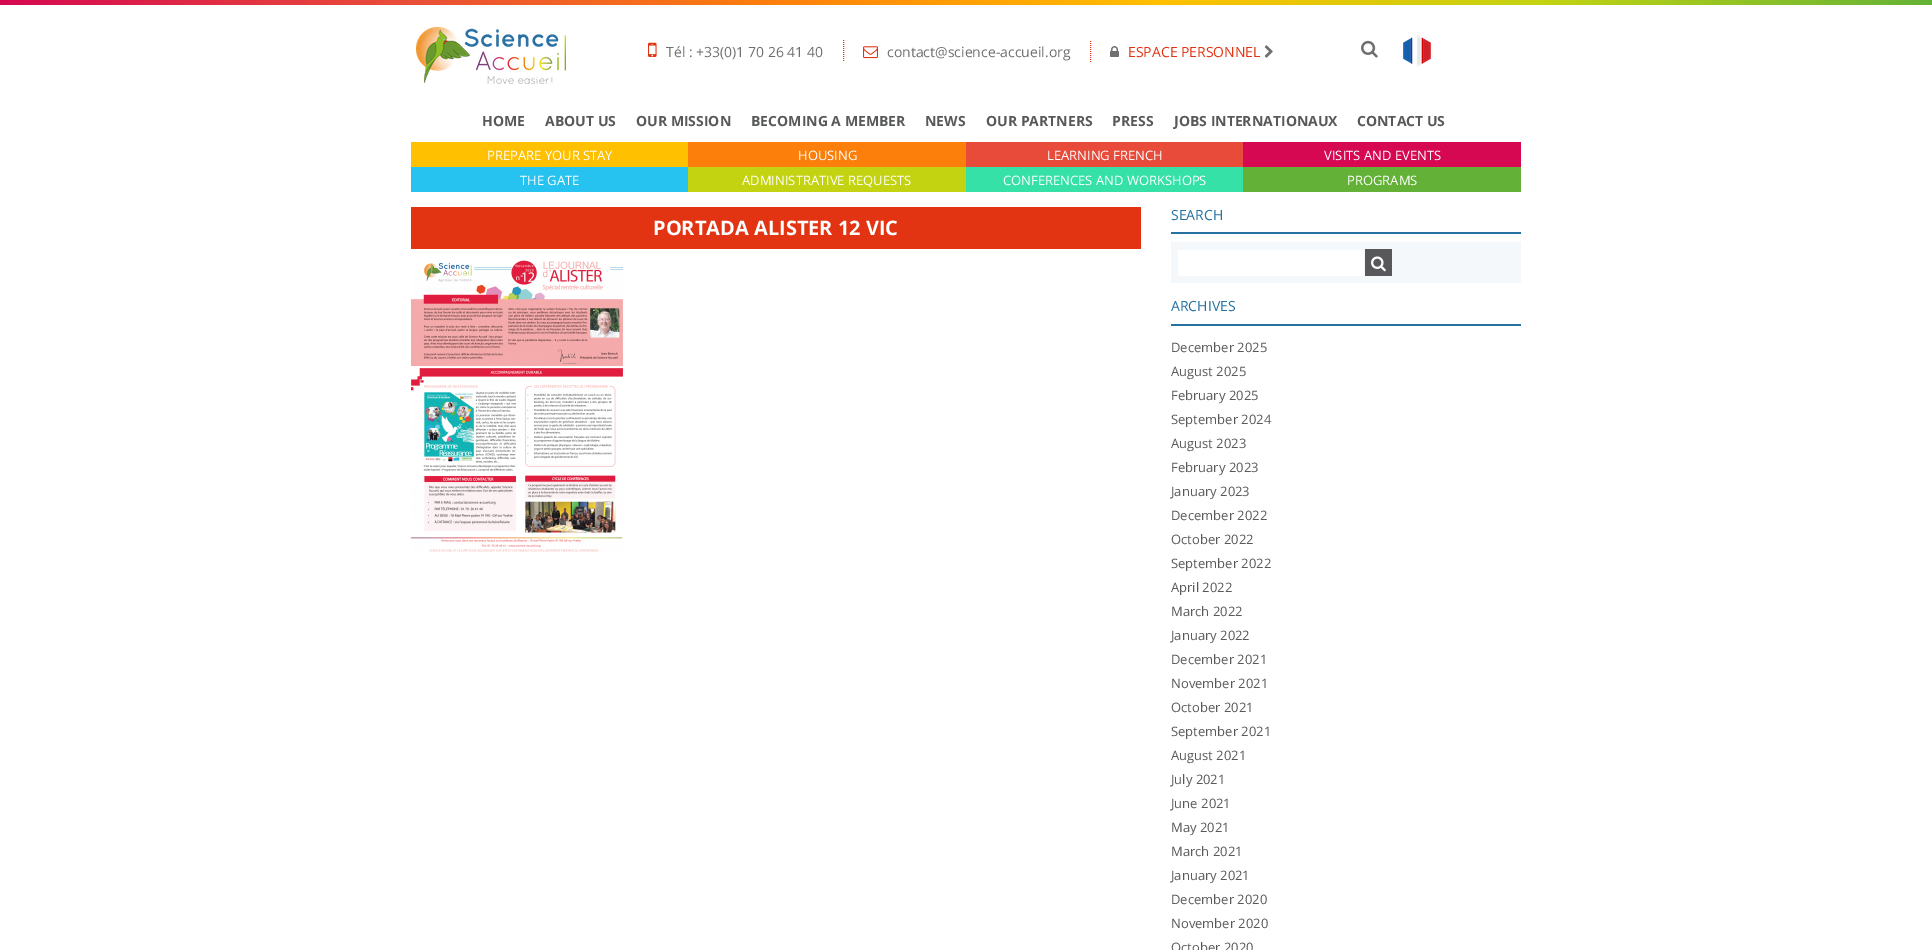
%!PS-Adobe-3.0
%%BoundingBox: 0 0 1932 950
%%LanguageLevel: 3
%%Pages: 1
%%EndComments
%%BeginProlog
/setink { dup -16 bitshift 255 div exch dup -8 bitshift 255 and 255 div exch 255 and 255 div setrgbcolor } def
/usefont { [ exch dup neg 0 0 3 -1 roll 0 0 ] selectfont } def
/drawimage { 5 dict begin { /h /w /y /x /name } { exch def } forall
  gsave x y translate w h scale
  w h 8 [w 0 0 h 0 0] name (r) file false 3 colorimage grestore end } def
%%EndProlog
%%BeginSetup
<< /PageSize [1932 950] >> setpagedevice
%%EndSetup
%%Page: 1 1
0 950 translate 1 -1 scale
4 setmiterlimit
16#FFFFFF setink
0 0 1932 950 rectfill
gsave 0 0 moveto 1932 0 lineto 1932 5 lineto 0 5 lineto closepath clip newpath
<< /ShadingType 2 /ColorSpace /DeviceRGB /Coords [0 2.5 1932 2.5] /Extend [true true] /Function << /FunctionType 3 /Domain [0 1] /Functions [<< /FunctionType 2 /Domain [0 1] /C0 [0.835 0.031 0.318] /C1 [0.91 0.294 0.227] /N 1 >> << /FunctionType 2 /Domain [0 1] /C0 [0.91 0.294 0.227] /C1 [0.988 0.498 0.047] /N 1 >> << /FunctionType 2 /Domain [0 1] /C0 [0.988 0.498 0.047] /C1 [1 0.753 0] /N 1 >> << /FunctionType 2 /Domain [0 1] /C0 [1 0.753 0] /C1 [0.765 0.827 0.071] /N 1 >> << /FunctionType 2 /Domain [0 1] /C0 [0.765 0.827 0.071] /C1 [0.388 0.698 0.216] /N 1 >>] /Bounds [0.2 0.4 0.6 0.8] /Encode [0 1 0 1 0 1 0 1 0 1] >> >> shfill grestore
(img1.raw) 416 27 150 57 drawimage
16#E23412 setink
[1 1] 0 setdash
843.5 40 moveto 843.5 62 lineto stroke
(img2.raw) 648 42 9 15 drawimage
/OpenSans-Regular 14 usefont
16#6F6F6F setink
666 57 moveto (Tél : +33\(0\)1 70 26 41 40) show
16#E23412 setink
1090.5 41 moveto 1090.5 62 lineto stroke
(img3.raw) 863 46 15 13 drawimage
16#6F6F6F setink
887 57 moveto (contact@science-accueil.org) show
(img4.raw) 1110 46 9 11 drawimage
16#E23412 setink
1128 57 moveto (ESPACE PERSONNEL) show
(img5.raw) 1264 45 9 13 drawimage
(img6.raw) 1361 40 17 18 drawimage
(img7.raw) 1402 35 30 32 drawimage
/OpenSans-Bold 14 usefont
16#58595A setink
[
    [(HOME) 482 126]
    [(ABOUT US) 545 126]
    [(OUR MISSION) 636 126]
    [(BECOMING A MEMBER) 751 126]
    [(NEWS) 925 126]
    [(OUR PARTNERS) 986 126]
    [(PRESS) 1112 126]
    [(JOBS INTERNATIONAUX) 1174 126]
    [(CONTACT US) 1357 126]
] { aload pop moveto show } forall
16#FFC000 setink
411 142 277 25 rectfill
/OpenSans-Regular 13 usefont
16#FFFFFF setink
487 160 moveto (PREPARE YOUR STAY) show
16#FC7F0C setink
688 142 278 25 rectfill
16#FFFFFF setink
798 160 moveto (HOUSING) show
16#E84B3A setink
966 142 277 25 rectfill
16#FFFFFF setink
1047 160 moveto (LEARNING FRENCH) show
16#D50851 setink
1243 142 278 25 rectfill
16#FFFFFF setink
1324 160 moveto (VISITS AND EVENTS) show
16#26C3F0 setink
411 167 277 25 rectfill
16#FFFFFF setink
520 185 moveto (THE GATE) show
16#C3D312 setink
688 167 278 25 rectfill
16#FFFFFF setink
742 185 moveto (ADMINISTRATIVE REQUESTS) show
16#36E1A7 setink
966 167 277 25 rectfill
16#FFFFFF setink
1003 185 moveto (CONFERENCES AND WORKSHOPS) show
16#63B237 setink
1243 167 278 25 rectfill
16#FFFFFF setink
1347 185 moveto (PROGRAMS) show
16#E23412 setink
411 207 730 42 rectfill
/OpenSans-Bold 20 usefont
16#FFFFFF setink
653 235 moveto (PORTADA ALISTER 12 VIC) show
(img8.raw) 411 260 212 292 drawimage
16#2471A2 setink
1171 232 350 2 rectfill
/OpenSans-Regular 14 usefont
1171 220 moveto (SEARCH) show
[
    [1171 242 350 41 16#F4F8FA]
    [1178 250 186 26 16#FFFFFF]
    [1365 249 27 27 16#58585A]
] { aload pop setink rectfill } forall
(img9.raw) 1371 256 15 16 drawimage
16#2471A2 setink
1171 324 350 2 rectfill
1171 311 moveto (ARCHIVES) show
/OpenSans-Regular 13 usefont
16#58595A setink
[
    [(December 2025) 1171 352]
    [(August 2025) 1171 376]
    [(February 2025) 1171 400]
    [(September 2024) 1171 424]
    [(August 2023) 1171 448]
    [(February 2023) 1171 472]
    [(January 2023) 1171 496]
    [(December 2022) 1171 520]
    [(October 2022) 1171 544]
    [(September 2022) 1171 568]
    [(April 2022) 1171 592]
    [(March 2022) 1171 616]
    [(January 2022) 1171 640]
    [(December 2021) 1171 664]
    [(November 2021) 1171 688]
    [(October 2021) 1171 712]
    [(September 2021) 1171 736]
    [(August 2021) 1171 760]
    [(July 2021) 1171 784]
    [(June 2021) 1171 808]
    [(May 2021) 1171 832]
    [(March 2021) 1171 856]
    [(January 2021) 1171 880]
    [(December 2020) 1171 904]
    [(November 2020) 1171 928]
    [(October 2020) 1171 952]
] { aload pop moveto show } forall
showpage
%%EOF
